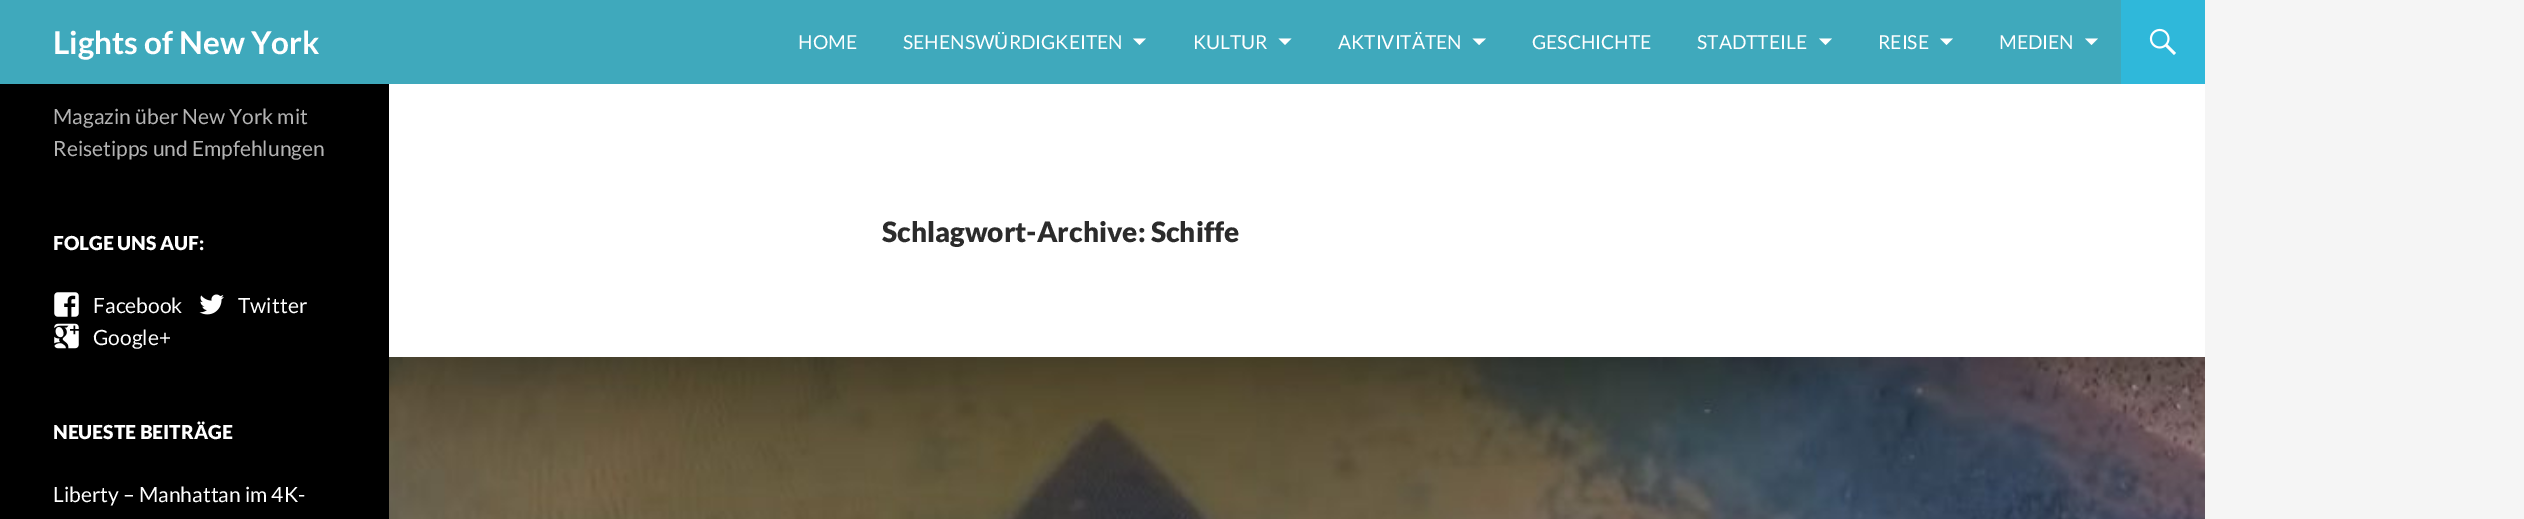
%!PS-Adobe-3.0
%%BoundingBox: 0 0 2524 519
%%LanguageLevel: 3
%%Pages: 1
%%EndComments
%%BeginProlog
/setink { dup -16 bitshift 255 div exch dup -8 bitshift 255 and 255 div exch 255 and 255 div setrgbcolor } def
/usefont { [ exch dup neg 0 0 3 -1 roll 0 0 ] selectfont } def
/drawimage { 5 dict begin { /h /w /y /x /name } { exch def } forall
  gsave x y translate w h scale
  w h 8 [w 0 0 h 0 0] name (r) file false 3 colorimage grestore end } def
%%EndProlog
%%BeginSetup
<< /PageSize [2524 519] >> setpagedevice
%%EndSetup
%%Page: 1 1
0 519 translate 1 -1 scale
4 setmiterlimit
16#F5F5F5 setink
0 0 2524 519 rectfill
16#FFFFFF setink
389 84 1816 273 rectfill
16#3FA9BC setink
0 0 2121 84 rectfill
/Lato-Bold 31.5 usefont
16#FFFFFF setink
53 54 moveto (Lights of New York) show
/Lato-Regular 19.25 usefont
798 49 moveto (HOME) show
903 49 moveto (SEHENSWÜRDIGKEITEN) show
1133 38.5 moveto 1139.5 45 lineto 1146 38.5 lineto closepath fill
1193 49 moveto (KULTUR) show
1278.5 38.5 moveto 1285 45 lineto 1291.5 38.5 lineto closepath fill
1338 49 moveto (AKTIVITÄTEN) show
1472.5 38.5 moveto 1479 45 lineto 1486 38.5 lineto closepath fill
1532 49 moveto (GESCHICHTE) show
1697 49 moveto (STADTTEILE) show
1819 38.5 moveto 1825.5 45 lineto 1832 38.5 lineto closepath fill
1878 49 moveto (REISE) show
1940 38.5 moveto 1946.5 45 lineto 1953 38.5 lineto closepath fill
1999 49 moveto (MEDIEN) show
2085 38.5 moveto 2091.5 45 lineto 2098 38.5 lineto closepath fill
16#2FB8DA setink
2121 0 84 84 rectfill
(img1.raw) 2149 28 27 27 drawimage
16#000000 setink
0 84 389 435 rectfill
/Lato-Regular 21 usefont
16#B3B3B3 setink
53 124 moveto (Magazin über New York mit) show
53 156 moveto (Reisetipps und Empfehlungen) show
/Lato-Black 19.25 usefont
16#FFFFFF setink
53 250 moveto (FOLGE UNS AUF:) show
(img2.raw) 54 292 25 25 drawimage
/Lato-Regular 21 usefont
93 313 moveto (Facebook) show
(img3.raw) 199 294 25 21 drawimage
238 313 moveto (Twitter) show
(img4.raw) 54 323 25 26 drawimage
93 345 moveto (Google+) show
/Lato-Black 19.25 usefont
53 439 moveto (NEUESTE BEITRÄGE) show
/Lato-Regular 21 usefont
53 502 moveto (Liberty – Manhattan im 4K-) show
/Lato-Black 28 usefont
16#2B2B2B setink
882 242 moveto (Schlagwort-Archive: Schiffe) show
(img5.raw) 389 357 1816 162 drawimage
showpage
%%EOF
